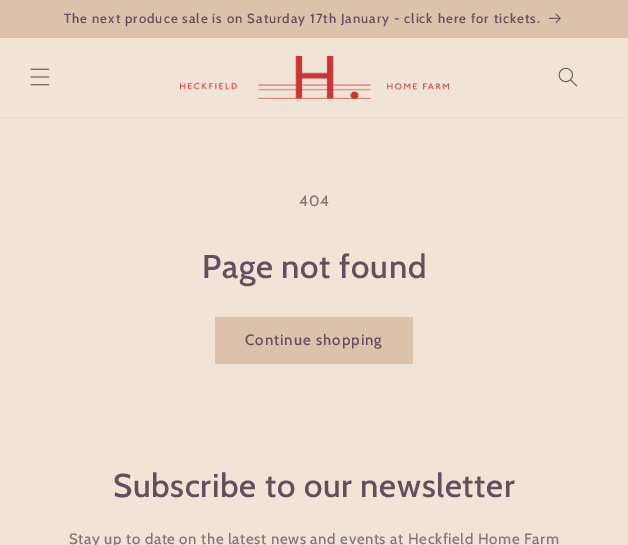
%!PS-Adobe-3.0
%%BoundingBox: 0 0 628 545
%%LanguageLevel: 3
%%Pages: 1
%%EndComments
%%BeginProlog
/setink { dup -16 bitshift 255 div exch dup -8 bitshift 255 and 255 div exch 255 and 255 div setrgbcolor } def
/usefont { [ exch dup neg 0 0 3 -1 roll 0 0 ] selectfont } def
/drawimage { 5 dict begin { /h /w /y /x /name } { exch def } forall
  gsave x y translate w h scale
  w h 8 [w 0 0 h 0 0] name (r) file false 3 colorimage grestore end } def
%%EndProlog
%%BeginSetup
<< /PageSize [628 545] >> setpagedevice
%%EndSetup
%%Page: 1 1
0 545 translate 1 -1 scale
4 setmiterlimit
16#F0E4D7 setink
0 0 628 545 rectfill
16#DCC2AA setink
0 0 628 38 rectfill
/Cabin-Medium 13.2 usefont
16#654E5D setink
64 23 moveto 1 0 (The next produce sale is on Saturday 17th January - click here for tickets.) ashow
(img1.raw) 549 13 12 11 drawimage
16#E5D8CD setink
0 117 628 1 rectfill
(img2.raw) 30 68 20 18 drawimage
(img3.raw) 180 56 269 43 drawimage
(img4.raw) 558 67 19 20 drawimage
/Cabin-Medium 15 usefont
16#88747C setink
299 206 moveto 0.6 0 (404) ashow
/Cabin-Medium 33 usefont
16#654E5D setink
202 278 moveto 0.65 0 (Page not found) ashow
16#DCC2AA setink
215 317 198 47 rectfill
/Cabin-Medium 15 usefont
16#654E5D setink
245 345 moveto 1 0 (Continue shopping) ashow
/Cabin-Medium 33 usefont
113 497 moveto 0.65 0 (Subscribe to our newsletter) ashow
/Cabin-Medium 15 usefont
16#88747C setink
69 544 moveto 0.6 0 (Stay up to date on the latest news and events at Heckfield Home Farm) ashow
showpage
%%EOF
